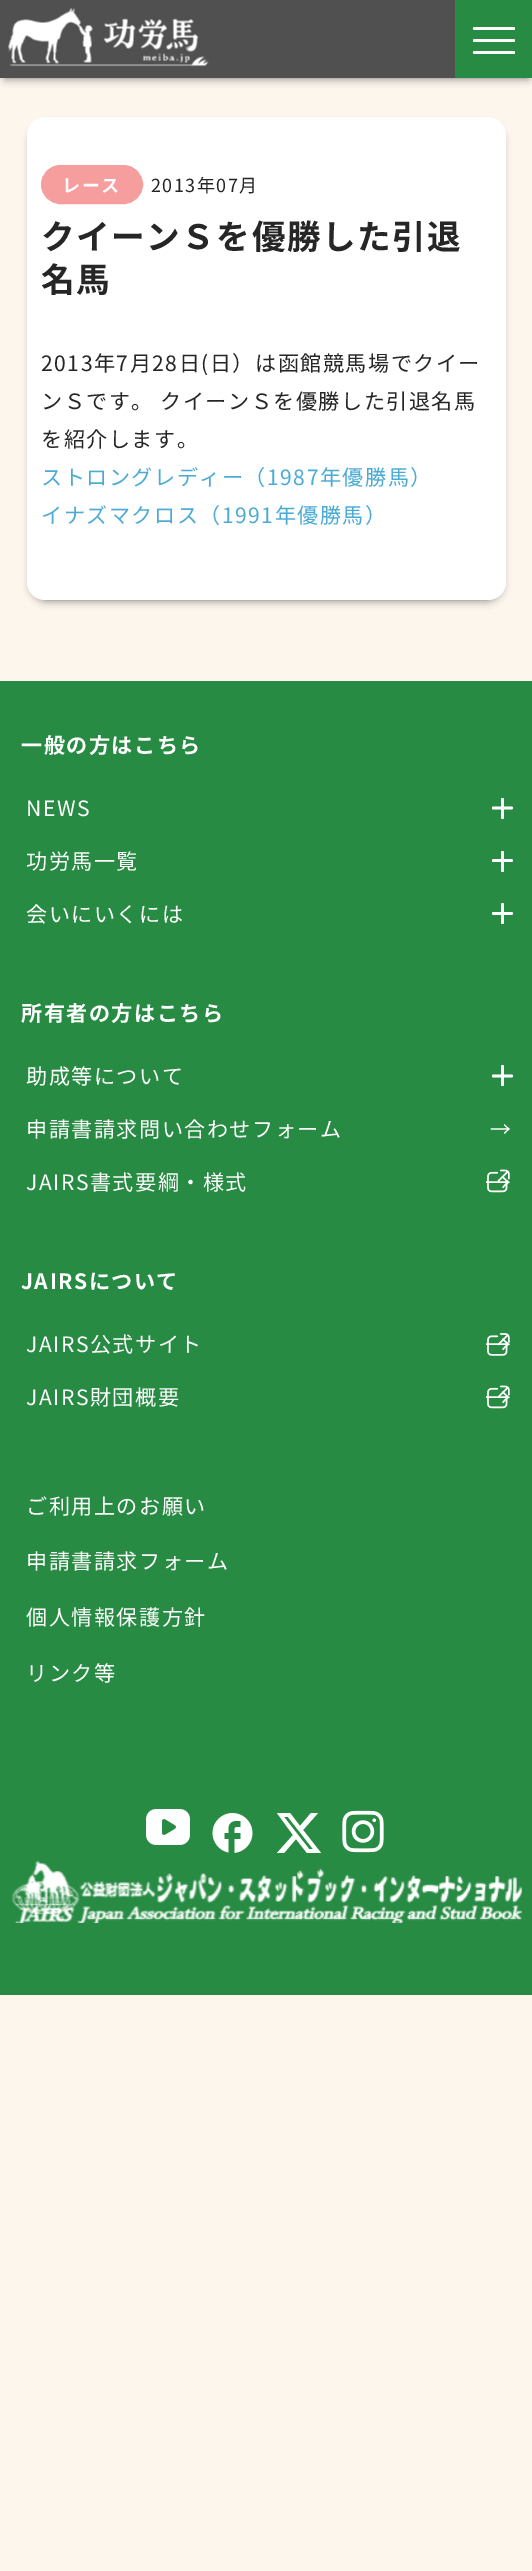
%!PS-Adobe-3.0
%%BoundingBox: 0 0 532 2571
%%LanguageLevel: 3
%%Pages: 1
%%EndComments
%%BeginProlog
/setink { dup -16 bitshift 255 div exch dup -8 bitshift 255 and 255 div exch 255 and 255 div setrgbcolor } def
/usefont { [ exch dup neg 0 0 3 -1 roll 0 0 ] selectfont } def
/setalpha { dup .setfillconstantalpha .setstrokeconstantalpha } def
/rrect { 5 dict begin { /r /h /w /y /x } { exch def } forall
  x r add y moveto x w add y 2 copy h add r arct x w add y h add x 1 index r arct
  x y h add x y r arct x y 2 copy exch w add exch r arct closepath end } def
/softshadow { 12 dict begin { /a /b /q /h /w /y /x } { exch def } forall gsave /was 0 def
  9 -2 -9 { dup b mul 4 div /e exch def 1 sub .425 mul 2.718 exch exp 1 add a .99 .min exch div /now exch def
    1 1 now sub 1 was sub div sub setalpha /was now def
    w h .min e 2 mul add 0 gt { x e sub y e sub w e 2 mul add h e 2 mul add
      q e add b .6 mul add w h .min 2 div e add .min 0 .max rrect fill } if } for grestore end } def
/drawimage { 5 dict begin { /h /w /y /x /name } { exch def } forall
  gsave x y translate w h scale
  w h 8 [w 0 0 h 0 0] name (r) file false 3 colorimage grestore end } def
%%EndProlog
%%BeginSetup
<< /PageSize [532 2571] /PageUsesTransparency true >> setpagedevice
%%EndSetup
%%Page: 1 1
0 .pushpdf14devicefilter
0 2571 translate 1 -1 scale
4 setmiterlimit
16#FCF6ED setink
0 0 532 2571 rectfill
16#000000 setink
5 9 523 69 0 4.5 0.53 softshadow
16#505050 setink
0 0 455 78 rectfill
(img1.raw) 7 7 202 60 drawimage
16#288B44 setink
455 0 77 78 rectfill
16#FFFFFF setink
473 27 42 3 1.5 rrect fill
473 39 42 3 1.5 rrect fill
473 51 42 3 1.5 rrect fill
16#000000 setink
32 126 469 474 14 4.5 0.53 softshadow
16#FFFFFF setink
27 117 479 483 18 rrect fill
16#F69D9D setink
42.5 166.5 99 36 18 rrect gsave fill grestore
3 setlinewidth
stroke
/NotoSansJP-Bold 18 usefont
16#FFFFFF setink
62 192 moveto 1.5 0 (レース) ashow
/NotoSansJP-Regular 18 usefont
16#262626 setink
151 192 moveto 1.5 0 (2013年07月) ashow
/NotoSansJP-Bold 33.6 usefont
41 249 moveto 1.5 0 (クイーンＳを優勝した引退) ashow
41 292 moveto 1.5 0 (名馬) ashow
/NotoSansJP-Regular 21.1 usefont
41 371 moveto 1.5 0 (2013年7月28日\(日）は函館競馬場でクイー) ashow
41 409 moveto 1.5 0 (ンＳです。 クイーンＳを優勝した引退名馬) ashow
41 447 moveto 1.5 0 (を紹介します。) ashow
16#4BABD4 setink
41 485 moveto 1.5 0 (ストロングレディー（1987年優勝馬）) ashow
41 523 moveto 1.5 0 (イナズマクロス（1991年優勝馬）) ashow
16#288B44 setink
0 681 532 1314 rectfill
/NotoSansJP-Bold 21.1 usefont
16#FFFFFF setink
21 753 moveto 1.5 0 (一般の方はこちら) ashow
/NotoSansJP-Regular 21.1 usefont
26 816 moveto 1.5 0 (NEWS) ashow
513 808 moveto 513 808.5 512 809.5 511.5 809.5 curveto 493.5 809.5 lineto 492.5 809.5 492 808.5 492 808 curveto 492 807 492.5 806.5 493.5 806.5 curveto 511.5 806.5 lineto 512 806.5 513 807 513 808 curveto closepath fill
501 798 3 21 1.5 rrect fill
26 869 moveto 1.5 0 (功労馬一覧) ashow
513 860.5 moveto 513 861.5 512 862 511.5 862 curveto 493.5 862 lineto 492.5 862 492 861.5 492 860.5 curveto 492 860 492.5 859 493.5 859 curveto 511.5 859 lineto 512 859 513 860 513 860.5 curveto closepath fill
501 851 3 21 1.5 rrect fill
26 922 moveto 1.5 0 (会いにいくには) ashow
513 913.5 moveto 513 914 512 915 511.5 915 curveto 493.5 915 lineto 492.5 915 492 914 492 913.5 curveto 492 912.5 492.5 912 493.5 912 curveto 511.5 912 lineto 512 912 513 912.5 513 913.5 curveto closepath fill
501 903 3 21 1.5 rrect fill
/NotoSansJP-Bold 21.1 usefont
21 1021 moveto 1.5 0 (所有者の方はこちら) ashow
/NotoSansJP-Regular 21.1 usefont
26 1084 moveto 1.5 0 (助成等について) ashow
513 1076 moveto 513 1077 512 1077.5 511.5 1077.5 curveto 493.5 1077.5 lineto 492.5 1077.5 492 1077 492 1076 curveto 492 1075 492.5 1074.5 493.5 1074.5 curveto 511.5 1074.5 lineto 512 1074.5 513 1075 513 1076 curveto closepath fill
501 1065 3 21 1.5 rrect fill
26 1137 moveto 1.5 0 (申請書請求問い合わせフォーム) ashow
490 1137 moveto 1.5 0 (→) ashow
26 1190 moveto 1.5 0 (JAIRS書式要綱・様式) ashow
(img2.raw) 487 1169 23 24 drawimage
/NotoSansJP-Regular 26 usefont
485 1192 moveto 1.5 0 (→) ashow
/NotoSansJP-Bold 21.1 usefont
21 1289 moveto 1.5 0 (JAIRSについて) ashow
/NotoSansJP-Regular 21.1 usefont
26 1352 moveto 1.5 0 (JAIRS公式サイト) ashow
(img3.raw) 487 1333 23 23 drawimage
/NotoSansJP-Regular 26 usefont
485 1354 moveto 1.5 0 (→) ashow
/NotoSansJP-Regular 21.1 usefont
26 1405 moveto 1.5 0 (JAIRS財団概要) ashow
(img2.raw) 487 1385 23 24 drawimage
/NotoSansJP-Regular 26 usefont
485 1407 moveto 1.5 0 (→) ashow
/NotoSansJP-Regular 21.1 usefont
26 1514 moveto 1.5 0 (ご利用上のお願い) ashow
26 1569 moveto 1.5 0 (申請書請求フォーム) ashow
26 1625 moveto 1.5 0 (個人情報保護方針) ashow
26 1681 moveto 1.5 0 (リンク等) ashow
(img4.raw) 146 1809 44 36 drawimage
(img5.raw) 212 1813 41 40 drawimage
311 1813 moveto 318 1813 lineto 303 1830 lineto 321 1853 lineto 307 1853 lineto 296 1839 lineto 284 1853 lineto 277 1853 lineto 293 1835 lineto 277 1813 lineto 290 1813 lineto 300 1826 lineto closepath 309 1849 moveto 313 1849 lineto 288 1817 lineto 284 1817 lineto closepath fill
(img6.raw) 342 1810 42 43 drawimage
(img7.raw) 11 1860 511 63 drawimage
.poppdf14devicefilter showpage
%%EOF
